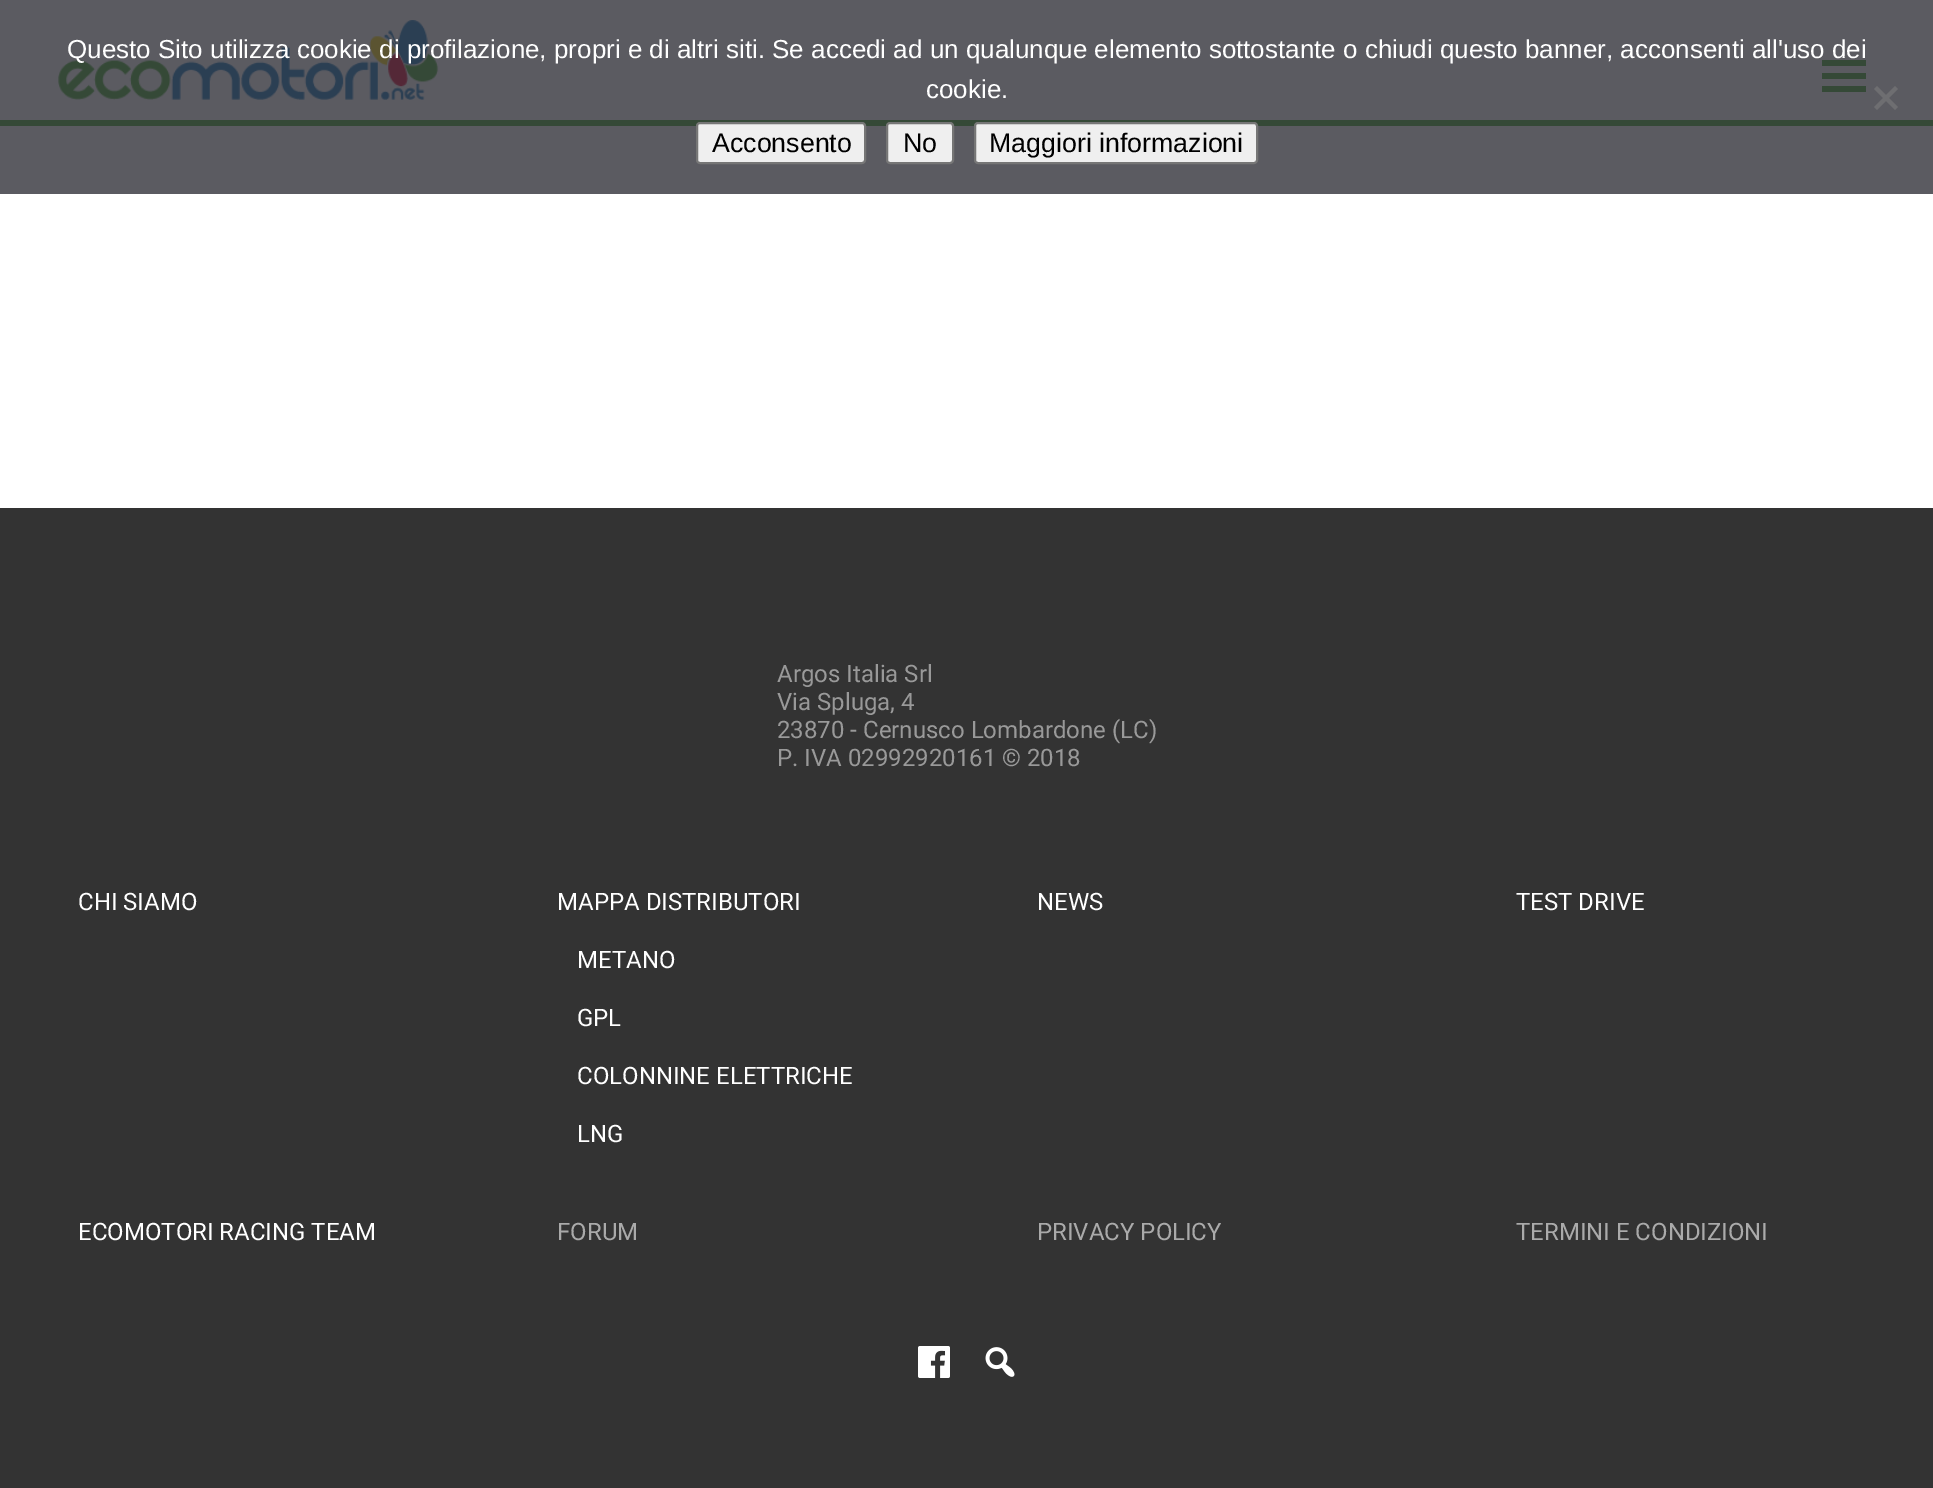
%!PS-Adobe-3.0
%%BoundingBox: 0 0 1933 1488
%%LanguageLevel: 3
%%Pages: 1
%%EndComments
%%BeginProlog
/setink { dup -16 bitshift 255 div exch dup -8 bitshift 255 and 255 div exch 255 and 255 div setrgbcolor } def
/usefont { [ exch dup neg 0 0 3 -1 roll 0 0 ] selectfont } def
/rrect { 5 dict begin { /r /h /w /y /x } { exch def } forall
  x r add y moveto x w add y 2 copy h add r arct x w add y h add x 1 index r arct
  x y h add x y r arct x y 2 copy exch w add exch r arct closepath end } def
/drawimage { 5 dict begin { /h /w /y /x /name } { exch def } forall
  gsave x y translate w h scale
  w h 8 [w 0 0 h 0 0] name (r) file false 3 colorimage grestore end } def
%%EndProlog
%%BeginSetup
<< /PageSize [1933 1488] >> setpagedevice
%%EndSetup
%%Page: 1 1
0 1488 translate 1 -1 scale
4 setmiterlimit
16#FFFFFF setink
0 0 1933 1488 rectfill
16#5B5B61 setink
0 0 1933 194 rectfill
(img1.raw) 58 20 381 80 drawimage
16#354937 setink
1822 92 moveto 1866 92 lineto 1866 86 lineto 1822 86 lineto closepath 1822 60 moveto 1822 66 lineto 1866 66 lineto 1866 60 lineto closepath 1822 79 moveto 1866 79 lineto 1866 73 lineto 1822 73 lineto closepath fill
/LiberationSans-Regular 26 usefont
16#FFFFFF setink
67 58 moveto (Questo Sito utilizza cookie di profilazione, propri e di altri siti. Se accedi ad un qualunque elemento sottostante o chiudi questo banner, acconsenti all'uso dei) show
926 98 moveto (cookie.) show
16#6E6E71 setink
1895 86 moveto 1898 89 lineto 1877 110 lineto 1874 107 lineto closepath fill
1874 89 moveto 1877 86 lineto 1898 107 lineto 1895 110 lineto closepath fill
16#354937 setink
0 120 1933 6 rectfill
16#EFEFEF setink
697 123 168 40 3 rrect gsave fill grestore
16#767676 setink
2 setlinewidth
stroke
/LiberationSans-Regular 26.75 usefont
16#000000 setink
712 152 moveto (Acconsento) show
16#EFEFEF setink
887 123 66 40 3 rrect gsave fill grestore
16#767676 setink
stroke
16#000000 setink
903 152 moveto (No) show
16#EFEFEF setink
975 123 282 40 3 rrect gsave fill grestore
16#767676 setink
stroke
16#000000 setink
989 152 moveto (Maggiori informazioni) show
16#333333 setink
0 508 1933 980 rectfill
/Roboto-Regular 24 usefont
16#999999 setink
[
    [(Argos Italia Srl) 777 682]
    [(Via Spluga, 4) 777 710]
    [(23870 - Cernusco Lombardone \(LC\)) 777 738]
    [(P. IVA 02992920161 © 2018) 777 766]
] { aload pop moveto show } forall
16#FFFFFF setink
[
    [(CHI SIAMO) 78 910]
    [(MAPPA DISTRIBUTORI) 557 910]
    [(METANO) 577 968]
    [(GPL) 577 1026]
    [(COLONNINE ELETTRICHE) 577 1084]
    [(LNG) 577 1142]
    [(NEWS) 1037 910]
    [(TEST DRIVE) 1516 910]
    [(ECOMOTORI RACING TEAM) 78 1240]
] { aload pop moveto show } forall
16#AAAAAA setink
[
    [(FORUM) 557 1240]
    [(PRIVACY POLICY) 1037 1240]
    [(TERMINI E CONDIZIONI) 1516 1240]
] { aload pop moveto show } forall
(img2.raw) 918 1346 32 32 drawimage
(img3.raw) 985 1347 30 30 drawimage
showpage
%%EOF
